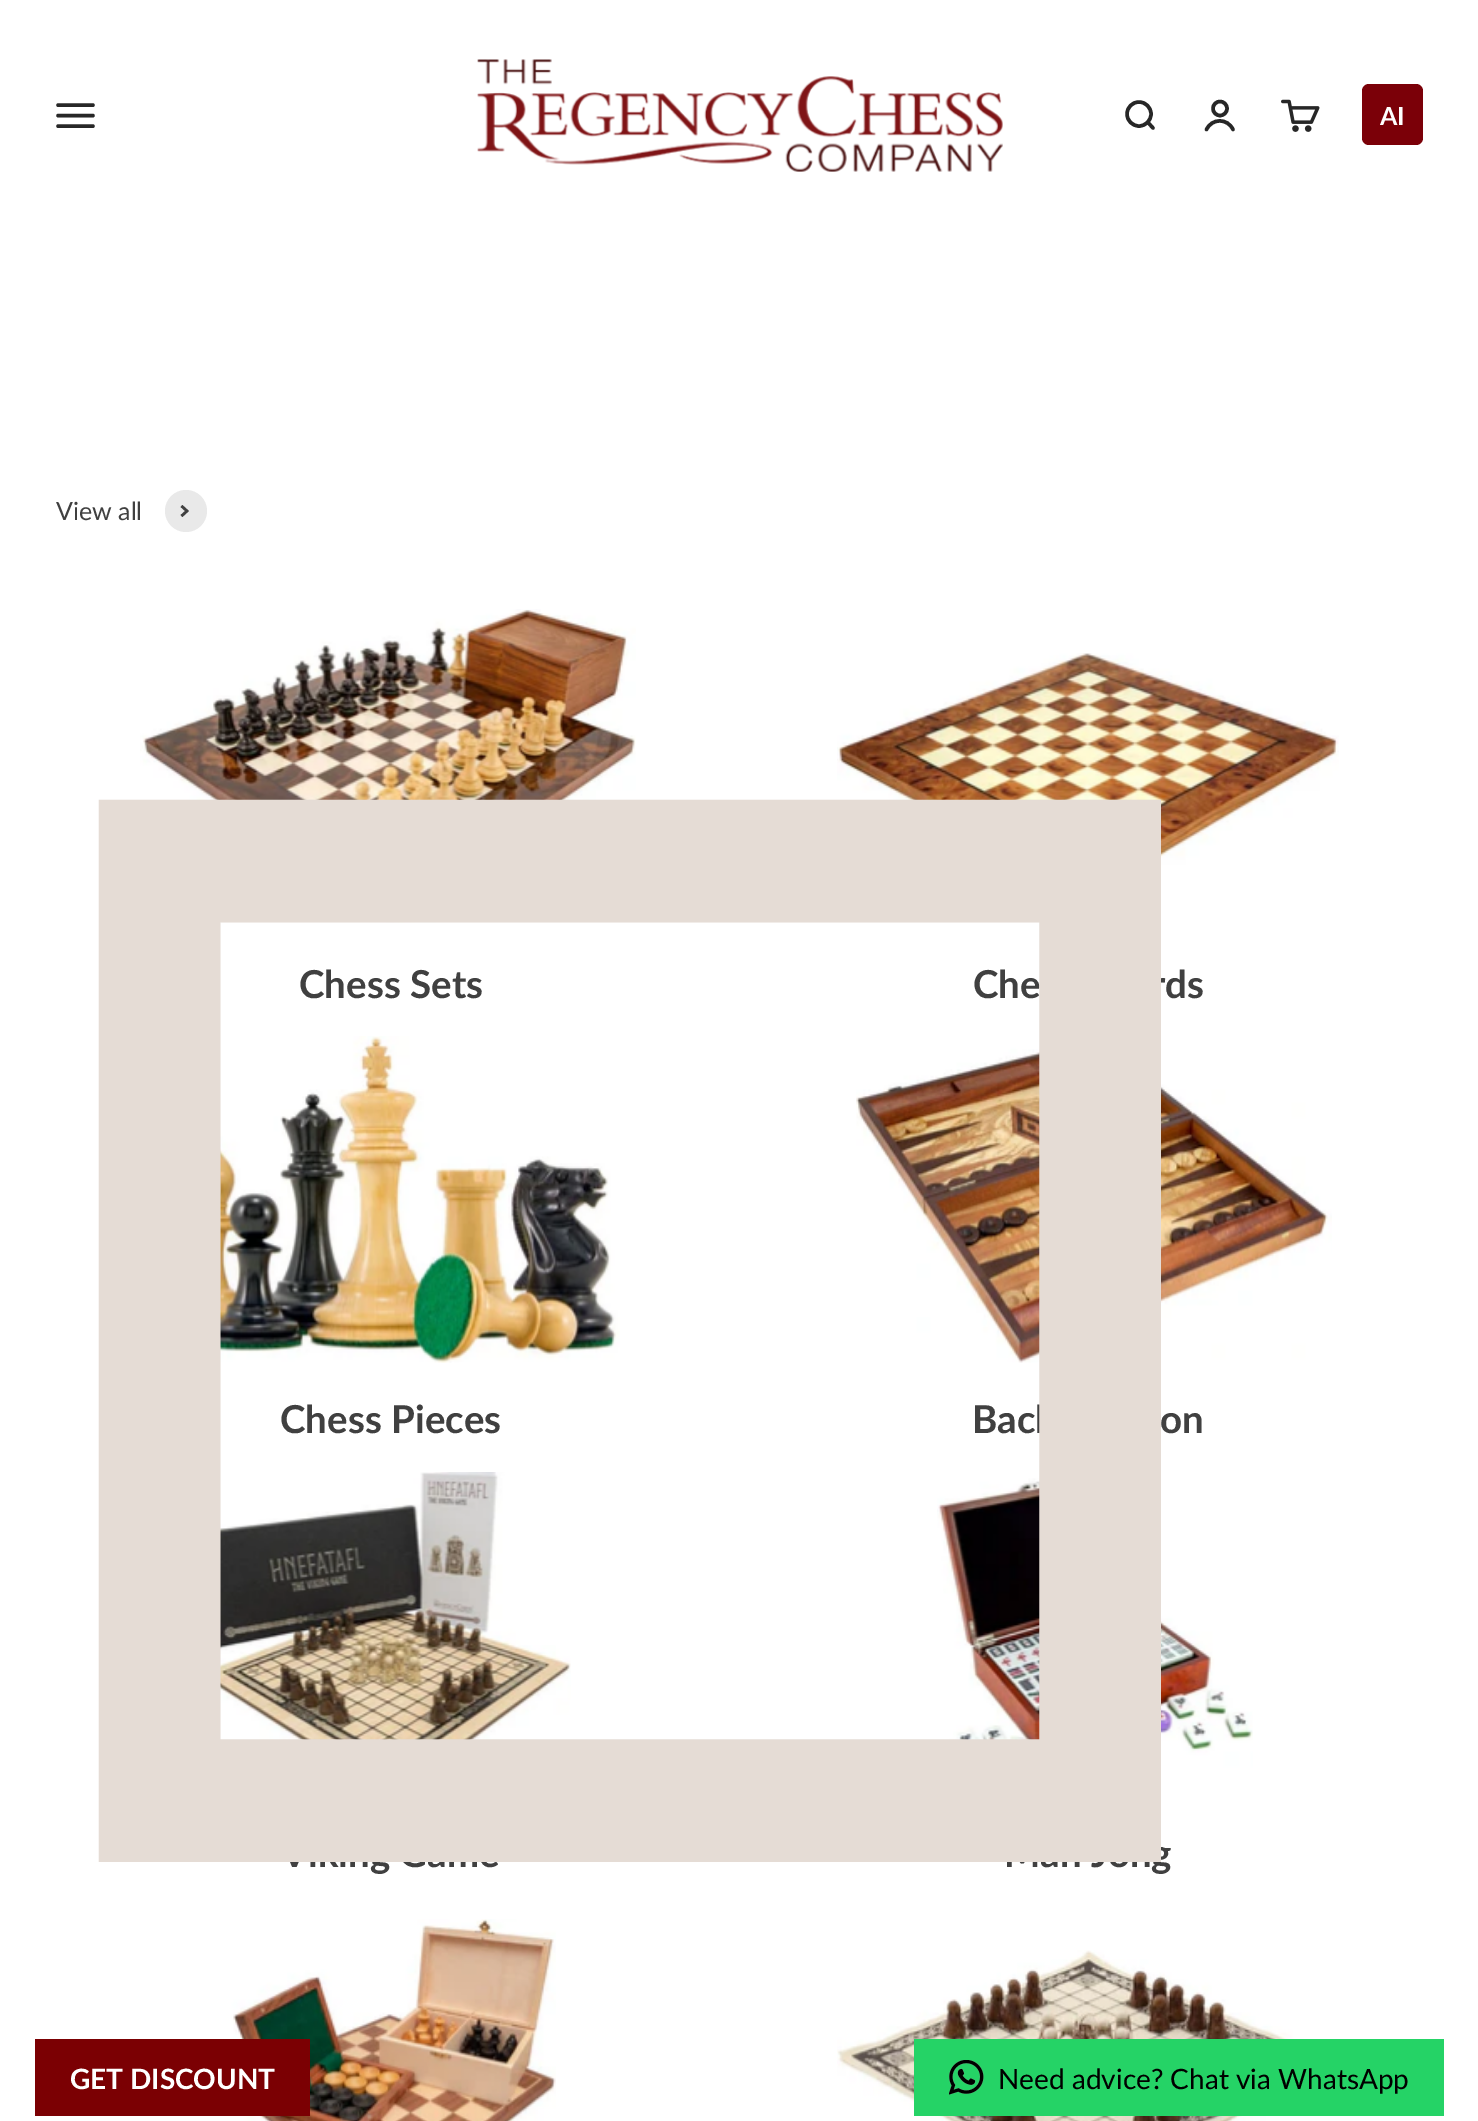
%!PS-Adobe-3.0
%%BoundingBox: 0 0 1478 2121
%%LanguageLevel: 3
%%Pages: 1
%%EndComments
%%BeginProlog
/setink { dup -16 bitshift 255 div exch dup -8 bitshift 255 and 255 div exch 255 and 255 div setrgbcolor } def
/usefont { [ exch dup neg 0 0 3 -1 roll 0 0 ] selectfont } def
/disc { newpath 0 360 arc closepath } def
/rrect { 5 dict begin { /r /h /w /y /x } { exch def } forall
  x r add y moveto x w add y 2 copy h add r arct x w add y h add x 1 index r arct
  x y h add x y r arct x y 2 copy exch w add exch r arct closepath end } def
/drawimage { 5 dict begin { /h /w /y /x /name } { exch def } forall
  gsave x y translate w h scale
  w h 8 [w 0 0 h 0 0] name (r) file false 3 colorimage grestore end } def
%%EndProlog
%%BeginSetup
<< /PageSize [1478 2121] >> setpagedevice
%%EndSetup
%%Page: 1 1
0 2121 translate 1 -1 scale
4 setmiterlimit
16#FFFFFF setink
0 0 1478 2121 rectfill
16#272727 setink
3.5 setlinewidth
1 setlinecap
58 105 moveto 93 105 lineto 58 115.5 moveto 93 115.5 lineto 58 126 moveto 93 126 lineto stroke
(img1.raw) 477 59 526 113 drawimage
0 setlinecap
1139 114 12 disc stroke
1 setlinecap
1 setlinejoin
1148 122.5 moveto 1153 128 lineto stroke
0 setlinecap
0 setlinejoin
1220 108.5 7 disc stroke
1 setlinecap
1206.5 129.5 moveto 1212 118 1227.5 118 1233 129.5 curveto stroke
(img2.raw) 1281 99 39 33 drawimage
16#7B0008 setink
1362 84 61 61 7 rrect fill
/Lato-Bold 25 usefont
16#FFFFFF setink
1380 125 moveto (AI) show
/Lato-Regular 25 usefont
16#404040 setink
56 520 moveto (View all) show
16#E9E9E9 setink
186 511 21 disc fill
16#404040 setink
2.6 setlinewidth
0 setlinecap
181.5 516 moveto 187 511 lineto 181.5 506 lineto stroke
(img3.raw) 140 609 496 314 drawimage
/Lato-Bold 38.5 usefont
299 998 moveto (Chess Sets) show
(img4.raw) 837 653 502 246 drawimage
973 998 moveto (Chess Boards) show
(img5.raw) 157 1036 463 327 drawimage
280 1433 moveto (Chess Pieces) show
(img6.raw) 856 1036 476 327 drawimage
972 1433 moveto (Backgammon) show
(img7.raw) 191 1472 380 327 drawimage
281 1867 moveto (Viking Game) show
(img8.raw) 937 1472 316 325 drawimage
1004 1867 moveto (Mah Jong) show
(img9.raw) 225 1919 331 202 drawimage
(img10.raw) 837 1950 501 171 drawimage
/Lato-Regular 2100 usefont
16#E5DCD5 setink
0 1862 moveto (□) show
16#7B0003 setink
35 2039 275 77 rectfill
/Lato-Bold 28 usefont
16#FFFFFF setink
70 2089 moveto (GET DISCOUNT) show
16#25D366 setink
914 2039 530 77 rectfill
(img11.raw) 949 2060 35 35 drawimage
/Lato-Regular 28 usefont
16#000000 setink
998 2089 moveto (Need advice? Chat via WhatsApp) show
showpage
%%EOF
